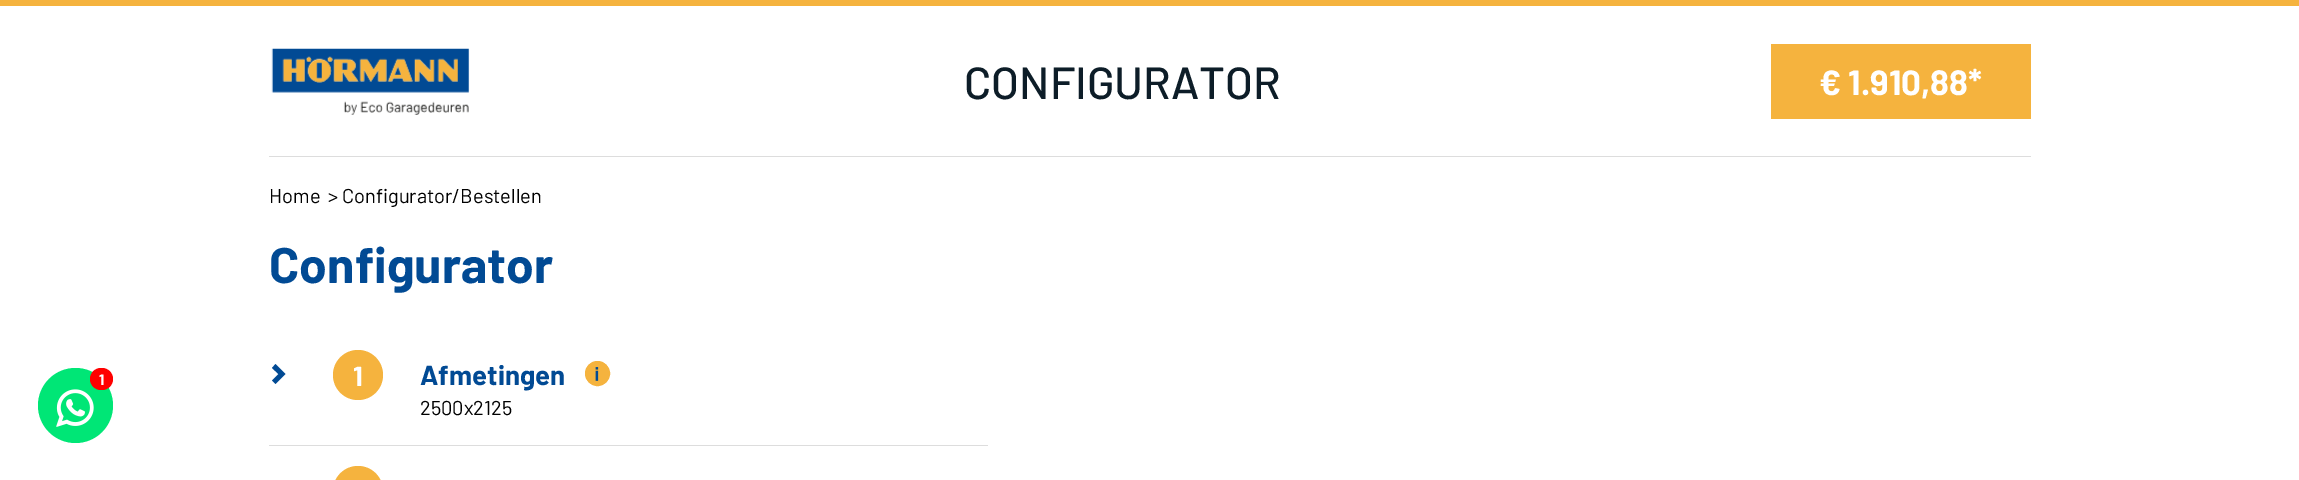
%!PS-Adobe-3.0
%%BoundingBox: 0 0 2299 480
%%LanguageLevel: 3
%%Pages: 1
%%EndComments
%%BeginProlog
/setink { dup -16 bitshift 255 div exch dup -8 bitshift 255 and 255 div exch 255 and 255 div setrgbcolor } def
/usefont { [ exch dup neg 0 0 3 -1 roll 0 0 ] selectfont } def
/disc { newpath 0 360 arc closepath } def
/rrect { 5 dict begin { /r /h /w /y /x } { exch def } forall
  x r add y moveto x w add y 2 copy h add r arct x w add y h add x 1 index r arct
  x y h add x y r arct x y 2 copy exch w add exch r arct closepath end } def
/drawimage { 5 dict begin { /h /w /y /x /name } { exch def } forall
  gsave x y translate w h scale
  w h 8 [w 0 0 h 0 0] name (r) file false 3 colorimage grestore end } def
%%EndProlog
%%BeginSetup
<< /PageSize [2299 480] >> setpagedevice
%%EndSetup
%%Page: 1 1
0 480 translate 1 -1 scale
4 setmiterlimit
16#FFFFFF setink
0 0 2299 480 rectfill
16#00E676 setink
75.5 405.5 37.5 disc fill
(img1.raw) 56 389 38 38 drawimage
16#FF0000 setink
90 368 23 22 11 rrect fill
/Barlow-Bold 15 usefont
16#FFFFFF setink
99 385 moveto (1) show
16#F5B33E setink
0 0 2299 6 rectfill
16#DDDDDD setink
269 156 1762 1 rectfill
(img2.raw) 271 48 199 67 drawimage
/Barlow-Medium 45 usefont
16#0D1D28 setink
964 99 moveto (CONFIGURATOR) show
16#F5B33E setink
1771 44 260 75 rectfill
/Barlow-Bold 35 usefont
16#FFFFFF setink
1819 95 moveto (€ 1.910,88*) show
/Barlow-Regular 20 usefont
16#000000 setink
269 203 moveto (Home) show
328 203 moveto (> Configurator/Bestellen) show
/Barlow-Bold 50 usefont
16#014A94 setink
269 283 moveto (Configurator) show
16#DDDDDD setink
269 445 719 1 rectfill
16#014A94 setink
272 380.5 moveto 278.5 374 lineto 272 368 lineto 275.5 364 lineto 285.5 374 lineto 275.5 384 lineto closepath fill
16#F5B33E setink
358 375 25 disc fill
/Barlow-Bold 27.5 usefont
16#FFFFFF setink
353 386 moveto (1) show
16#014A94 setink
420 385 moveto (Afmetingen) show
16#F5B33E setink
597.5 373.5 12 disc gsave fill grestore
stroke
(img3.raw) 595 367 4 14 drawimage
/Barlow-Regular 20 usefont
16#000000 setink
420 415 moveto (2500x2125) show
16#F5B33E setink
333 466 50 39 25 rrect fill
showpage
%%EOF
